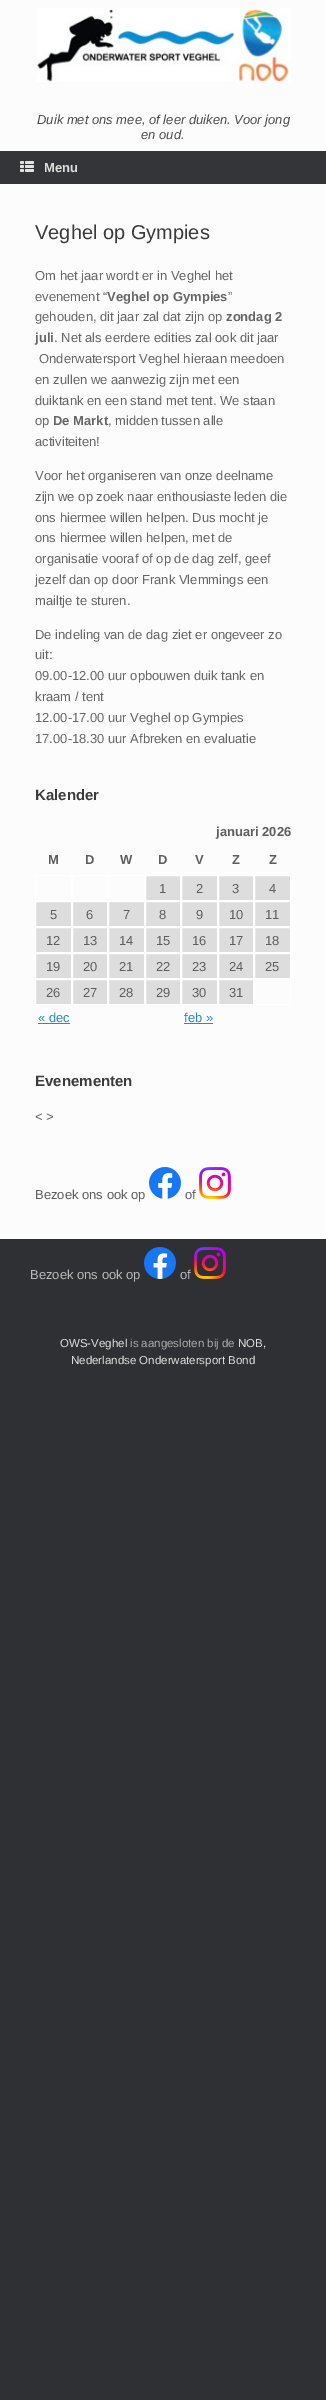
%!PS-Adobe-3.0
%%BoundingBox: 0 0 326 2400
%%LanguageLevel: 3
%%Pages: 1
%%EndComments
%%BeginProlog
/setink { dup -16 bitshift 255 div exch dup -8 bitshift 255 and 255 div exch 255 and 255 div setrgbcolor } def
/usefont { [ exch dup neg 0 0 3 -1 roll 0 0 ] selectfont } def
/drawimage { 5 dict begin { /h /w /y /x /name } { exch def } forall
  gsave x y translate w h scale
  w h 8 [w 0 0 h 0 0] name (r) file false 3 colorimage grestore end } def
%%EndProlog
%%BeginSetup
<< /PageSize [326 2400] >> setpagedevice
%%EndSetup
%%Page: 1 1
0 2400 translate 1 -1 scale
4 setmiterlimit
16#2F3033 setink
0 0 326 2400 rectfill
16#FCFCFC setink
0 0 326 151 rectfill
(img1.raw) 37 8 254 74 drawimage
/LiberationSans-Italic 13 usefont
16#4B4B4B setink
37 124 moveto (Duik met ons mee, of leer duiken. Voor jong) show
141 139 moveto (en oud.) show
16#343538 setink
0 151 326 33 rectfill
(img2.raw) 20 161 14 11 drawimage
/LiberationSans-Bold 13 usefont
16#DDDDDD setink
44 172 moveto (Menu) show
16#FCFCFC setink
0 184 326 1055 rectfill
/LiberationSans-Regular 20 usefont
16#3B3B3B setink
35 239 moveto (Veghel op Gympies) show
/LiberationSans-Regular 13 usefont
16#666666 setink
35 280 moveto (Om het jaar wordt er in Veghel het) show
35 301 moveto (evenement “) show
/LiberationSans-Bold 13 usefont
107 301 moveto (Veghel op Gympies) show
/LiberationSans-Regular 13 usefont
228 301 moveto (”) show
35 321 moveto (gehouden, dit jaar zal dat zijn op) show
/LiberationSans-Bold 13 usefont
226 321 moveto (zondag 2) show
35 342 moveto (juli) show
/LiberationSans-Regular 13 usefont
[
    [(. Net als eerdere edities zal ook dit jaar) 54 342]
    [(Onderwatersport Veghel hieraan meedoen) 39 363]
    [(en zullen we aanwezig zijn met een) 35 384]
    [(duiktank en een stand met tent. We staan) 35 405]
    [(op) 35 425]
] { aload pop moveto show } forall
/LiberationSans-Bold 13 usefont
53 425 moveto (De Markt) show
/LiberationSans-Regular 13 usefont
[
    [(, midden tussen alle) 108 425]
    [(activiteiten!) 35 446]
    [(Voor het organiseren van onze deelname) 35 480]
    [(zijn we op zoek naar enthousiaste leden die) 35 501]
    [(ons hiermee willen helpen. Dus mocht je) 35 522]
    [(ons hiermee willen helpen, met de) 35 542]
    [(organisatie vooraf of op de dag zelf, geef) 35 563]
    [(jezelf dan op door Frank Vlemmings een) 35 584]
    [(mailtje te sturen.) 35 605]
    [(De indeling van de dag ziet er ongeveer zo) 35 639]
    [(uit:) 35 659]
    [(09.00-12.00 uur opbouwen duik tank en) 35 680]
    [(kraam / tent) 35 701]
    [(12.00-17.00 uur Veghel op Gympies) 35 722]
    [(17.00-18.30 uur Afbreken en evaluatie) 35 743]
] { aload pop moveto show } forall
/LiberationSans-Bold 15 usefont
16#3B3B3B setink
35 800 moveto (Kalender) show
/LiberationSans-Bold 13 usefont
16#5E5E5E setink
[
    [(januari 2026) 216 836]
    [(M) 48 864]
    [(D) 85 864]
    [(W) 120 864]
    [(D) 158 864]
    [(V) 195 864]
    [(Z) 232 864]
    [(Z) 269 864]
] { aload pop moveto show } forall
16#FFFFFF setink
35.5 875.5 36 25 rectstroke
72.5 875.5 35 25 rectstroke
108.5 875.5 36 25 rectstroke
16#DDDDDD setink
145.5 875.5 moveto 180.5 875.5 lineto 180.5 900.5 lineto 145.5 900.5 lineto closepath gsave fill grestore
16#FFFFFF setink
stroke
/LiberationSans-Regular 13 usefont
16#5E5E5E setink
159 893 moveto (1) show
16#DDDDDD setink
181.5 875.5 moveto 217.5 875.5 lineto 217.5 900.5 lineto 181.5 900.5 lineto closepath gsave fill grestore
16#FFFFFF setink
stroke
16#5E5E5E setink
196 893 moveto (2) show
16#DDDDDD setink
218.5 875.5 moveto 253.5 875.5 lineto 253.5 900.5 lineto 218.5 900.5 lineto closepath gsave fill grestore
16#FFFFFF setink
stroke
16#5E5E5E setink
232 893 moveto (3) show
16#DDDDDD setink
254.5 875.5 moveto 290.5 875.5 lineto 290.5 900.5 lineto 254.5 900.5 lineto closepath gsave fill grestore
16#FFFFFF setink
stroke
16#5E5E5E setink
269 893 moveto (4) show
16#DDDDDD setink
35.5 901.5 moveto 71.5 901.5 lineto 71.5 926.5 lineto 35.5 926.5 lineto closepath gsave fill grestore
16#FFFFFF setink
stroke
16#5E5E5E setink
50 919 moveto (5) show
16#DDDDDD setink
72.5 901.5 moveto 107.5 901.5 lineto 107.5 926.5 lineto 72.5 926.5 lineto closepath gsave fill grestore
16#FFFFFF setink
stroke
16#5E5E5E setink
86 919 moveto (6) show
16#DDDDDD setink
108.5 901.5 moveto 144.5 901.5 lineto 144.5 926.5 lineto 108.5 926.5 lineto closepath gsave fill grestore
16#FFFFFF setink
stroke
16#5E5E5E setink
123 919 moveto (7) show
16#DDDDDD setink
145.5 901.5 moveto 180.5 901.5 lineto 180.5 926.5 lineto 145.5 926.5 lineto closepath gsave fill grestore
16#FFFFFF setink
stroke
16#5E5E5E setink
159 919 moveto (8) show
16#DDDDDD setink
181.5 901.5 moveto 217.5 901.5 lineto 217.5 926.5 lineto 181.5 926.5 lineto closepath gsave fill grestore
16#FFFFFF setink
stroke
16#5E5E5E setink
196 919 moveto (9) show
16#DDDDDD setink
218.5 901.5 moveto 253.5 901.5 lineto 253.5 926.5 lineto 218.5 926.5 lineto closepath gsave fill grestore
16#FFFFFF setink
stroke
16#5E5E5E setink
229 919 moveto (10) show
16#DDDDDD setink
254.5 901.5 moveto 290.5 901.5 lineto 290.5 926.5 lineto 254.5 926.5 lineto closepath gsave fill grestore
16#FFFFFF setink
stroke
16#5E5E5E setink
265 919 moveto (11) show
16#DDDDDD setink
35.5 927.5 moveto 71.5 927.5 lineto 71.5 952.5 lineto 35.5 952.5 lineto closepath gsave fill grestore
16#FFFFFF setink
stroke
16#5E5E5E setink
46 945 moveto (12) show
16#DDDDDD setink
72.5 927.5 moveto 107.5 927.5 lineto 107.5 952.5 lineto 72.5 952.5 lineto closepath gsave fill grestore
16#FFFFFF setink
stroke
16#5E5E5E setink
83 945 moveto (13) show
16#DDDDDD setink
108.5 927.5 moveto 144.5 927.5 lineto 144.5 952.5 lineto 108.5 952.5 lineto closepath gsave fill grestore
16#FFFFFF setink
stroke
16#5E5E5E setink
119 945 moveto (14) show
16#DDDDDD setink
145.5 927.5 moveto 180.5 927.5 lineto 180.5 952.5 lineto 145.5 952.5 lineto closepath gsave fill grestore
16#FFFFFF setink
stroke
16#5E5E5E setink
156 945 moveto (15) show
16#DDDDDD setink
181.5 927.5 moveto 217.5 927.5 lineto 217.5 952.5 lineto 181.5 952.5 lineto closepath gsave fill grestore
16#FFFFFF setink
stroke
16#5E5E5E setink
192 945 moveto (16) show
16#DDDDDD setink
218.5 927.5 moveto 253.5 927.5 lineto 253.5 952.5 lineto 218.5 952.5 lineto closepath gsave fill grestore
16#FFFFFF setink
stroke
16#5E5E5E setink
229 945 moveto (17) show
16#DDDDDD setink
254.5 927.5 moveto 290.5 927.5 lineto 290.5 952.5 lineto 254.5 952.5 lineto closepath gsave fill grestore
16#FFFFFF setink
stroke
16#5E5E5E setink
265 945 moveto (18) show
16#DDDDDD setink
35.5 953.5 moveto 71.5 953.5 lineto 71.5 978.5 lineto 35.5 978.5 lineto closepath gsave fill grestore
16#FFFFFF setink
stroke
16#5E5E5E setink
46 971 moveto (19) show
16#DDDDDD setink
72.5 953.5 moveto 107.5 953.5 lineto 107.5 978.5 lineto 72.5 978.5 lineto closepath gsave fill grestore
16#FFFFFF setink
stroke
16#5E5E5E setink
83 971 moveto (20) show
16#DDDDDD setink
108.5 953.5 moveto 144.5 953.5 lineto 144.5 978.5 lineto 108.5 978.5 lineto closepath gsave fill grestore
16#FFFFFF setink
stroke
16#5E5E5E setink
119 971 moveto (21) show
16#DDDDDD setink
145.5 953.5 moveto 180.5 953.5 lineto 180.5 978.5 lineto 145.5 978.5 lineto closepath gsave fill grestore
16#FFFFFF setink
stroke
16#5E5E5E setink
156 971 moveto (22) show
16#DDDDDD setink
181.5 953.5 moveto 217.5 953.5 lineto 217.5 978.5 lineto 181.5 978.5 lineto closepath gsave fill grestore
16#FFFFFF setink
stroke
16#5E5E5E setink
192 971 moveto (23) show
16#DDDDDD setink
218.5 953.5 moveto 253.5 953.5 lineto 253.5 978.5 lineto 218.5 978.5 lineto closepath gsave fill grestore
16#FFFFFF setink
stroke
16#5E5E5E setink
229 971 moveto (24) show
16#DDDDDD setink
254.5 953.5 moveto 290.5 953.5 lineto 290.5 978.5 lineto 254.5 978.5 lineto closepath gsave fill grestore
16#FFFFFF setink
stroke
16#5E5E5E setink
265 971 moveto (25) show
16#DDDDDD setink
35.5 979.5 moveto 71.5 979.5 lineto 71.5 1004.5 lineto 35.5 1004.5 lineto closepath gsave fill grestore
16#FFFFFF setink
stroke
16#5E5E5E setink
46 997 moveto (26) show
16#DDDDDD setink
72.5 979.5 moveto 107.5 979.5 lineto 107.5 1004.5 lineto 72.5 1004.5 lineto closepath gsave fill grestore
16#FFFFFF setink
stroke
16#5E5E5E setink
83 997 moveto (27) show
16#DDDDDD setink
108.5 979.5 moveto 144.5 979.5 lineto 144.5 1004.5 lineto 108.5 1004.5 lineto closepath gsave fill grestore
16#FFFFFF setink
stroke
16#5E5E5E setink
119 997 moveto (28) show
16#DDDDDD setink
145.5 979.5 moveto 180.5 979.5 lineto 180.5 1004.5 lineto 145.5 1004.5 lineto closepath gsave fill grestore
16#FFFFFF setink
stroke
16#5E5E5E setink
156 997 moveto (29) show
16#DDDDDD setink
181.5 979.5 moveto 217.5 979.5 lineto 217.5 1004.5 lineto 181.5 1004.5 lineto closepath gsave fill grestore
16#FFFFFF setink
stroke
16#5E5E5E setink
192 997 moveto (30) show
16#DDDDDD setink
218.5 979.5 moveto 253.5 979.5 lineto 253.5 1004.5 lineto 218.5 1004.5 lineto closepath gsave fill grestore
16#FFFFFF setink
stroke
16#5E5E5E setink
229 997 moveto (31) show
16#FFFFFF setink
254.5 979.5 36 25 rectstroke
16#248CC8 setink
38 1022 moveto (« dec) show
38 1023 32 1 rectfill
184 1022 moveto (feb ») show
184 1023 29 1 rectfill
/LiberationSans-Bold 15 usefont
16#3B3B3B setink
35 1086 moveto (Evenementen) show
/LiberationSans-Regular 13 usefont
16#5E5E5E setink
35 1121 moveto (< >) show
35 1199 moveto (Bezoek ons ook op) show
(img3.raw) 149 1167 32 32 drawimage
185 1199 moveto (of) show
(img4.raw) 199 1167 32 32 drawimage
16#B9B9B9 setink
30 1279 moveto (Bezoek ons ook op) show
(img5.raw) 144 1247 32 32 drawimage
180 1279 moveto (of) show
(img6.raw) 194 1247 32 32 drawimage
/LiberationSans-Regular 11.5 usefont
16#DDDDDD setink
60 1347 moveto (OWS-Veghel) show
16#AAAAAA setink
130 1347 moveto (is aangesloten bij de) show
16#DDDDDD setink
238 1347 moveto (NOB,) show
71 1364 moveto (Nederlandse Onderwatersport Bond) show
showpage
%%EOF
